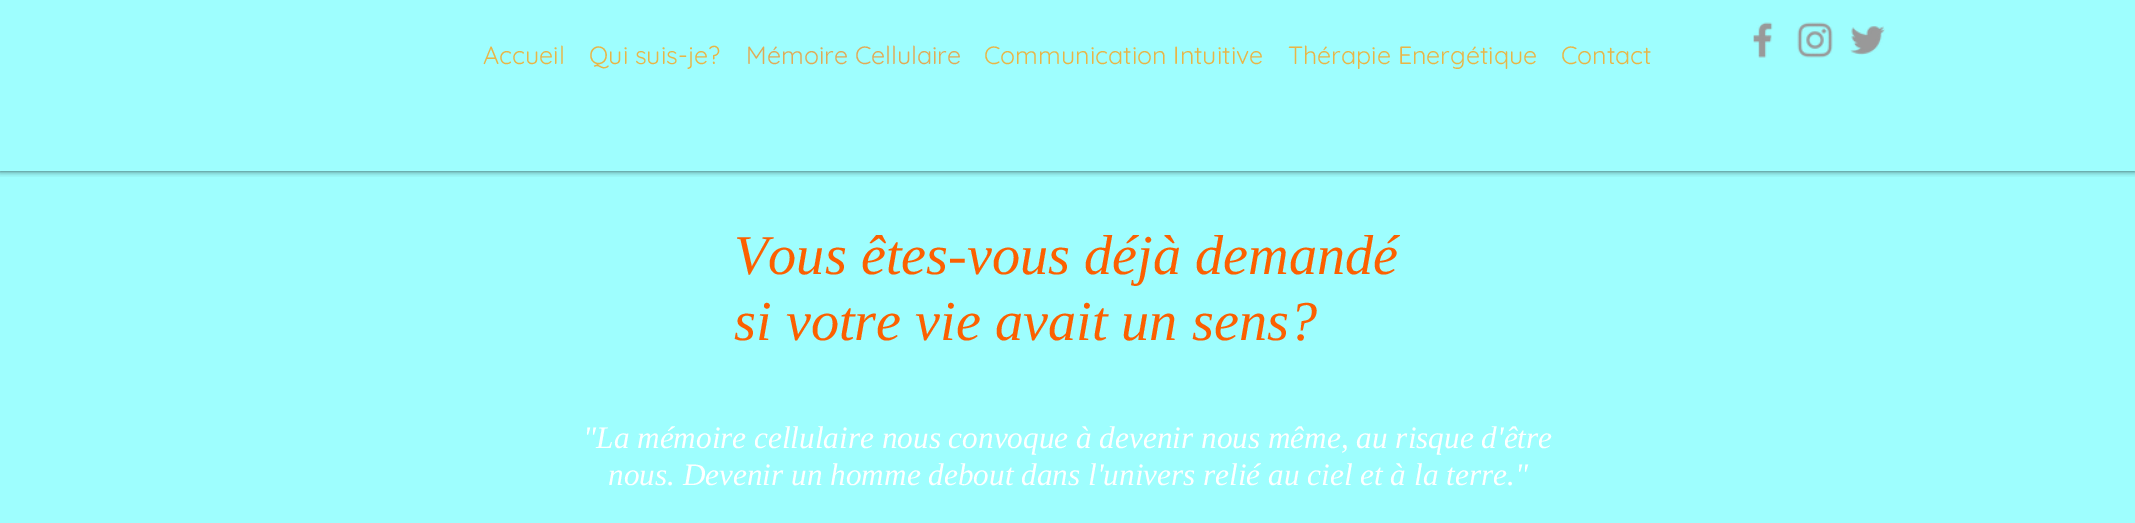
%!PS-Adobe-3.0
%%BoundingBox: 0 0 2135 523
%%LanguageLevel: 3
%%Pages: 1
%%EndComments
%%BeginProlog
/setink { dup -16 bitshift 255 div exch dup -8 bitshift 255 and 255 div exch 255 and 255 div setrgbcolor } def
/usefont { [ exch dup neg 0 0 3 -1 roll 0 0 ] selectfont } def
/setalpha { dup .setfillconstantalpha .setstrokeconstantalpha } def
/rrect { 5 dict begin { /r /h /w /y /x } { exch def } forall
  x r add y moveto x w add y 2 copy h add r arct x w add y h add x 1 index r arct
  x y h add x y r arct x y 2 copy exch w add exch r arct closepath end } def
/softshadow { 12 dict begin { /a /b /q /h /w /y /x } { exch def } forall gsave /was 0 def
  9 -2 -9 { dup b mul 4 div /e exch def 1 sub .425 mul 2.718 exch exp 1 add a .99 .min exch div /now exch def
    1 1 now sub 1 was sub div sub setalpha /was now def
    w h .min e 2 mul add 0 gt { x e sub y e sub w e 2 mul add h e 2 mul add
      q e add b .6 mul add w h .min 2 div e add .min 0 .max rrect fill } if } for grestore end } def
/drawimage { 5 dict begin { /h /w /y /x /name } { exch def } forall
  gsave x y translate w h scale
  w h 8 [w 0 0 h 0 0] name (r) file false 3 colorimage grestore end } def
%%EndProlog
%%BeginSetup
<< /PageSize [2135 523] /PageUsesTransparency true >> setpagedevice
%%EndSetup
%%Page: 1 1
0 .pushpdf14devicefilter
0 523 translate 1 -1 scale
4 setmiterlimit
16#9EFEFE setink
0 0 2135 523 rectfill
gsave
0 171 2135 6 rectclip
16#000000 setink
0 0 2135 171 0 3 0.7 softshadow
grestore
/Quicksand-Regular 25 usefont
16#E9B546 setink
483 64 moveto (Accueil) show
589 64 moveto (Qui suis-je?) show
16#E1AA56 setink
746 64 moveto (Mémoire Cellulaire) show
16#E9B546 setink
[
    [(Communication Intuitive) 984 64]
    [(Thérapie Energétique) 1288 64]
    [(Contact) 1561 64]
] { aload pop moveto show } forall
(img1.raw) 1753 22 20 36 drawimage
(img2.raw) 1797 22 36 36 drawimage
(img3.raw) 1850 26 35 29 drawimage
/LiberationSerif-Italic 56.25 usefont
16#FC6000 setink
734 274 moveto (Vous êtes-vous déjà demandé) show
734 340 moveto (si votre vie avait un sens?) show
/LiberationSerif-Italic 31.25 usefont
16#FFFFFF setink
583 448 moveto ("La mémoire cellulaire nous convoque à devenir nous même, au risque d'être) show
608 485 moveto (nous. Devenir un homme debout dans l'univers relié au ciel et à la terre.") show
.poppdf14devicefilter showpage
%%EOF
